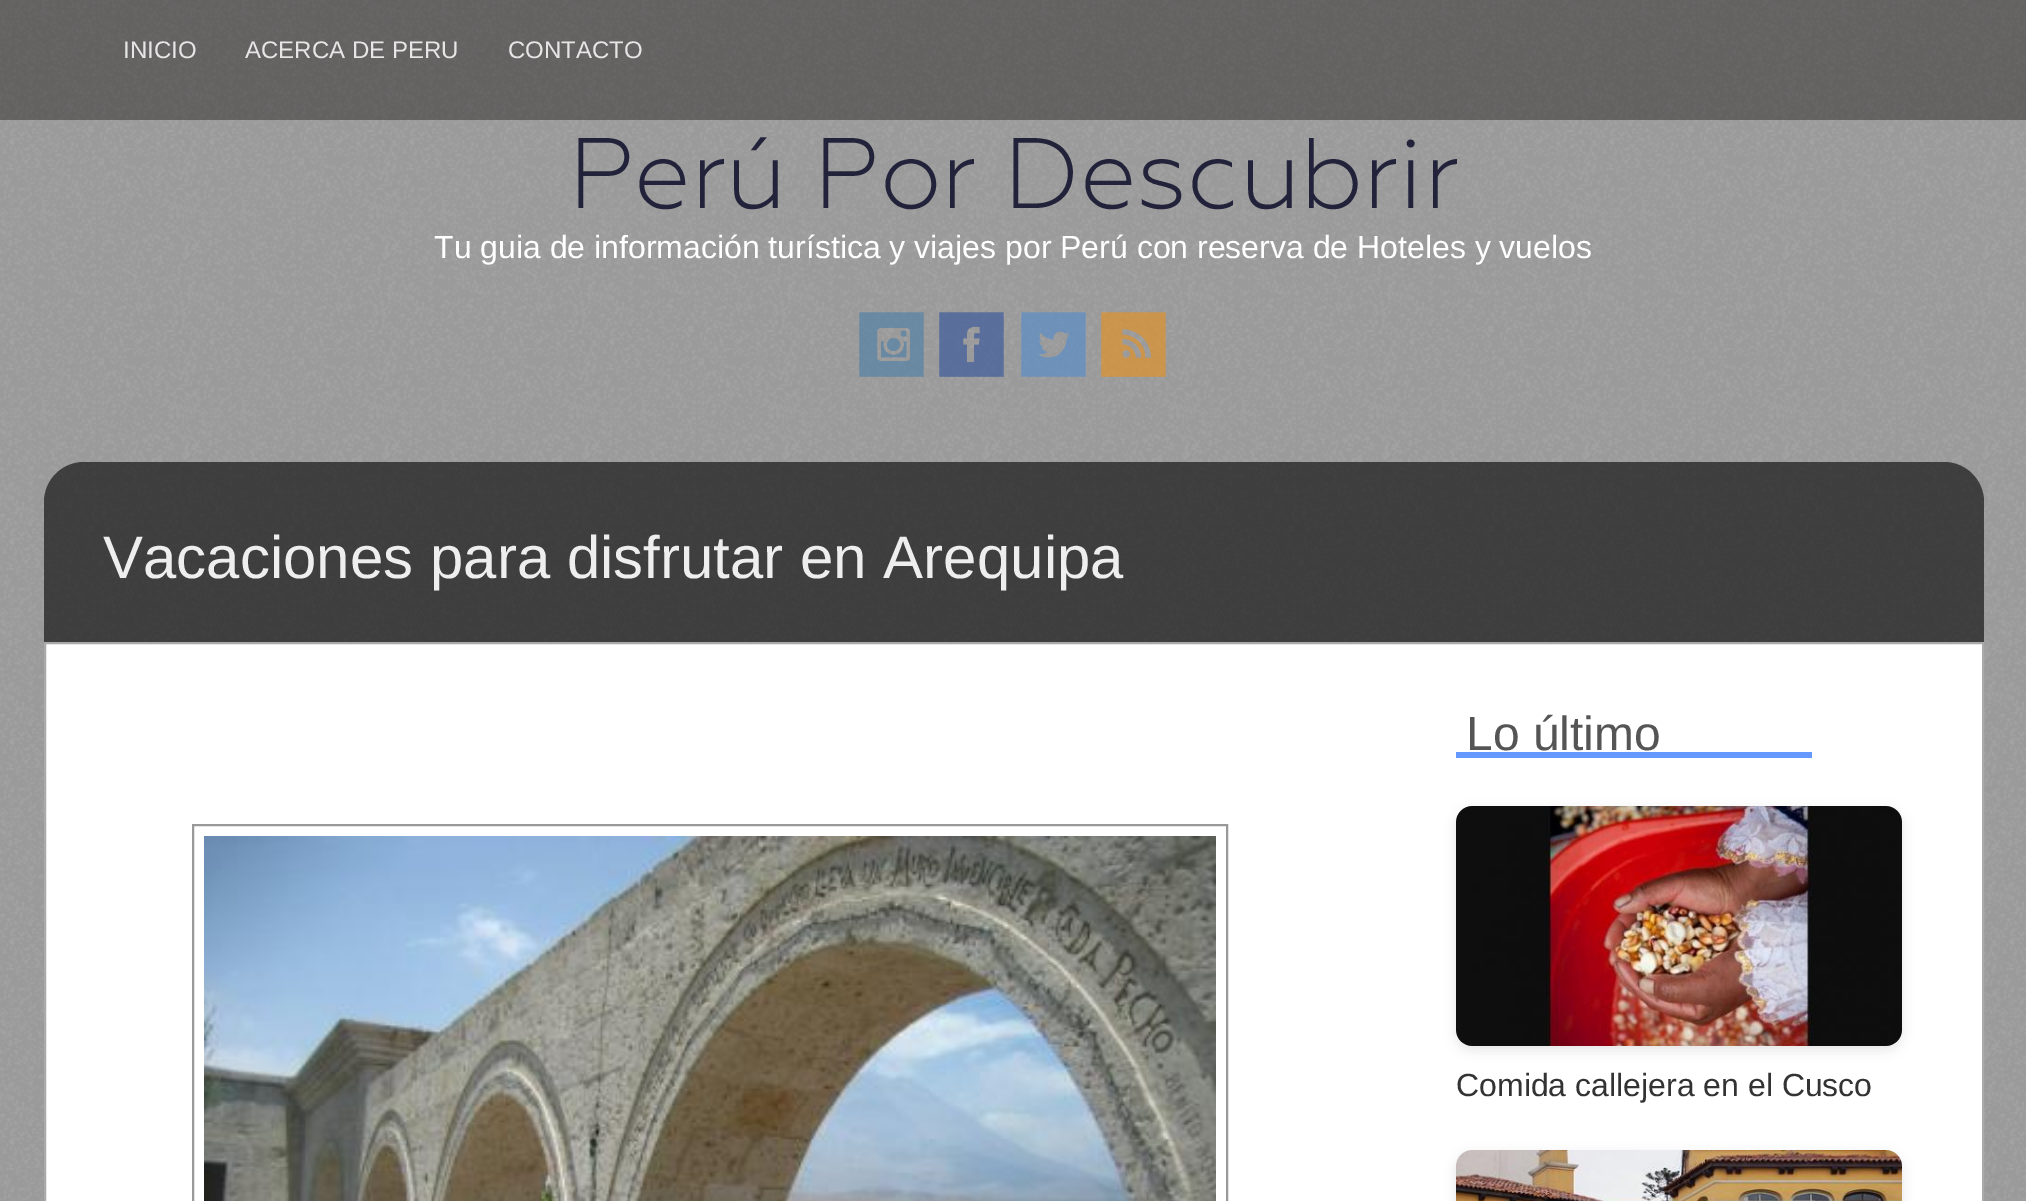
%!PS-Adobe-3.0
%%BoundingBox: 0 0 2026 1201
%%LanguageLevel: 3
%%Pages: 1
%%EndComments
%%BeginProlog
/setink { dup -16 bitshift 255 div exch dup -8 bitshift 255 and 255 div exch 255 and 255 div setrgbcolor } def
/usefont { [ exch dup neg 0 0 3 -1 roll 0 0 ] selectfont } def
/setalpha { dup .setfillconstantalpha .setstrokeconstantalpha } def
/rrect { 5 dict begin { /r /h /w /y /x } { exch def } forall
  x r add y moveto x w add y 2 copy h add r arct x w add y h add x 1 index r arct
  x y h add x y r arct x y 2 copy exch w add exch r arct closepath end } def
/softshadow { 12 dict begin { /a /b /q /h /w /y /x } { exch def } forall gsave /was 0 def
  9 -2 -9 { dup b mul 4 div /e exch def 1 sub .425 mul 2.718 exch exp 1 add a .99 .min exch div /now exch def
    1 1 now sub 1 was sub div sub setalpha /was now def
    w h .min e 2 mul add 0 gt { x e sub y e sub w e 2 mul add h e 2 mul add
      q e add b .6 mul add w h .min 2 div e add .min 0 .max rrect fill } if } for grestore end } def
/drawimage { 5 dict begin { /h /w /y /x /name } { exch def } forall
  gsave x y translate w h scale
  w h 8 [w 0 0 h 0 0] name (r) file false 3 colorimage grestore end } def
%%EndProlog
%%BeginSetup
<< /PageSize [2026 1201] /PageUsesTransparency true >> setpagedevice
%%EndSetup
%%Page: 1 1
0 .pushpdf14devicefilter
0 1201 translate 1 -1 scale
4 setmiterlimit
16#FFFFFF setink
0 0 2026 1201 rectfill
(img1.raw) 0 0 2026 1201 drawimage
0.4 setalpha
16#120D0C setink
0 0 2026 120 rectfill
/LiberationSans-Regular 24 usefont
1 setalpha
16#E6E6E6 setink
[
    [(INICIO) 123 58]
    [(ACERCA DE PERU) 245 58]
    [(CONTACTO) 508 58]
] { aload pop moveto show } forall
/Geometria-Light 100 usefont
16#22233A setink
568 208 moveto (Perú Por Descubrir) show
/LiberationSans-Regular 32 usefont
16#FFFFFF setink
434 258 moveto (Tu guia de información turística y viajes por Perú con reserva de Hoteles y vuelos) show
(img2.raw) 859 312 65 65 drawimage
(img3.raw) 939 312 65 65 drawimage
(img4.raw) 1021 312 65 65 drawimage
(img5.raw) 1101 312 65 65 drawimage
0.6 setalpha
16#000000 setink
84 462 moveto 1944 462 lineto 1966 462 1984 480 1984 502 curveto 1984 652 lineto 44 652 lineto 44 502 lineto 44 480 62 462 84 462 curveto closepath fill
/LiberationSans-Regular 60 usefont
1 setalpha
16#EEEEEE setink
103 578 moveto (Vacaciones para disfrutar en Arequipa) show
16#FFFFFF setink
45 643 moveto 1983 643 lineto 1983 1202 lineto 45 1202 lineto closepath gsave fill grestore
16#AAAAAA setink
2 setlinewidth
stroke
16#999999 setink
193 825 1034 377 rectstroke
(img6.raw) 204 836 1012 365 drawimage
16#6699FF setink
1456 752 356 6 rectfill
/LiberationSans-Regular 48 usefont
16#555555 setink
1466 750 moveto (Lo último) show
16#000000 setink
1456 810 446 240 16 6 0.1 softshadow
(img7.raw) 1456 806 446 240 drawimage
/LiberationSans-Regular 32 usefont
16#333333 setink
1456 1096 moveto (Comida callejera en el Cusco) show
16#000000 setink
1456 1154 446 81 16 6 0.1 softshadow
(img8.raw) 1456 1150 446 51 drawimage
.poppdf14devicefilter showpage
%%EOF
